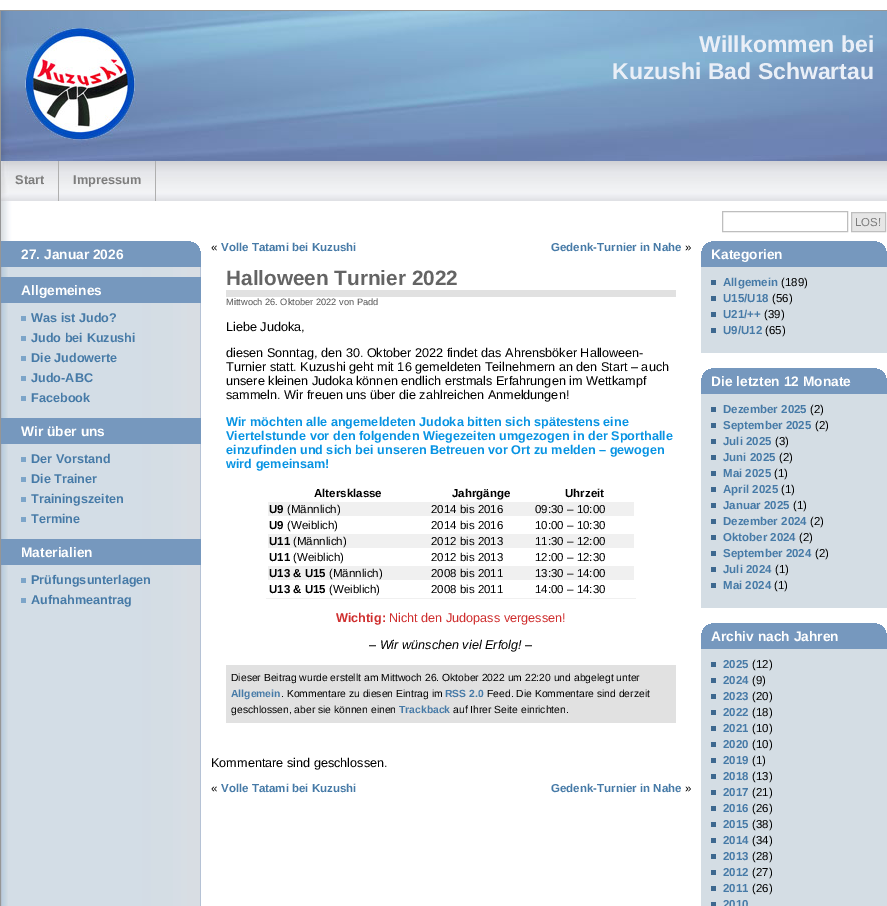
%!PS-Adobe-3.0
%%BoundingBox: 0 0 887 906
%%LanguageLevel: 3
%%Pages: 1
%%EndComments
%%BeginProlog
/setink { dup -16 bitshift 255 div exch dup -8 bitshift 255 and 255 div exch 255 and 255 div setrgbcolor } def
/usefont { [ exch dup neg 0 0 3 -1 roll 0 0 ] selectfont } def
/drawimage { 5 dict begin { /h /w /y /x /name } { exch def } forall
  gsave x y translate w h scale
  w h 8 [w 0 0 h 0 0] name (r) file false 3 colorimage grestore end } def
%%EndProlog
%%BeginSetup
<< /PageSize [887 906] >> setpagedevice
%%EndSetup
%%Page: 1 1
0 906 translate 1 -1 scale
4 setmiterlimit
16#FFFFFF setink
0 0 887 906 rectfill
(img1.raw) 1 267 200 639 drawimage
16#969696 setink
0.5 10.5 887 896 rectstroke
(img2.raw) 1 11 886 150 drawimage
/LiberationSans-Bold 23 usefont
16#EAEFF7 setink
699 52 moveto (Willkommen bei) show
612 79 moveto (Kuzushi Bad Schwartau) show
(img3.raw) 1 161 886 40 drawimage
16#AFAFAF setink
58 161 1 40 rectfill
/LiberationSans-Bold 12.75 usefont
16#7D7D7D setink
15 184 moveto (Start) show
16#AFAFAF setink
155 161 1 40 rectfill
16#7D7D7D setink
73 184 moveto (Impressum) show
(img4.raw) 1 201 200 40 drawimage
16#BEBEBE setink
722.5 211.5 125 20 rectstroke
16#E6E6E6 setink
851.5 212.5 moveto 885.5 212.5 lineto 885.5 231.5 lineto 851.5 231.5 lineto closepath gsave fill grestore
16#BEBEBE setink
stroke
/LiberationSans-Regular 11.5 usefont
16#7D7D7D setink
855 226 moveto (LOS!) show
16#7698BE setink
1 241 200 26 rectfill
(img5.raw) 191 241 10 10 drawimage
/LiberationSans-Bold 13.75 usefont
16#FFFFFF setink
21 259 moveto (27. Januar 2026) show
16#7698BE setink
1 277 200 26 rectfill
16#FFFFFF setink
21 295 moveto (Allgemeines) show
/LiberationSans-Bold 12.65 usefont
16#467AA7 setink
31 322 moveto (Was ist Judo?) show
16#7DA5C9 setink
21 316 5 5 rectfill
16#467AA7 setink
31 342 moveto (Judo bei Kuzushi) show
16#7DA5C9 setink
21 336 5 5 rectfill
16#467AA7 setink
31 362 moveto (Die Judowerte) show
16#7DA5C9 setink
21 356 5 5 rectfill
16#467AA7 setink
31 382 moveto (Judo-ABC) show
16#7DA5C9 setink
21 376 5 5 rectfill
16#467AA7 setink
31 402 moveto (Facebook) show
16#7DA5C9 setink
21 396 5 5 rectfill
16#7698BE setink
1 418 200 26 rectfill
/LiberationSans-Bold 13.75 usefont
16#FFFFFF setink
21 436 moveto (Wir über uns) show
/LiberationSans-Bold 12.65 usefont
16#467AA7 setink
31 463 moveto (Der Vorstand) show
16#7DA5C9 setink
21 457 5 5 rectfill
16#467AA7 setink
31 483 moveto (Die Trainer) show
16#7DA5C9 setink
21 477 5 5 rectfill
16#467AA7 setink
31 503 moveto (Trainingszeiten) show
16#7DA5C9 setink
21 497 5 5 rectfill
16#467AA7 setink
31 523 moveto (Termine) show
16#7DA5C9 setink
21 517 5 5 rectfill
16#7698BE setink
1 539 200 26 rectfill
/LiberationSans-Bold 13.75 usefont
16#FFFFFF setink
21 557 moveto (Materialien) show
/LiberationSans-Bold 12.65 usefont
16#467AA7 setink
31 584 moveto (Prüfungsunterlagen) show
16#7DA5C9 setink
21 578 5 5 rectfill
16#467AA7 setink
31 604 moveto (Aufnahmeantrag) show
16#7DA5C9 setink
21 598 5 5 rectfill
/LiberationSans-Regular 11.5 usefont
16#000000 setink
211 251 moveto («) show
/LiberationSans-Bold 11.5 usefont
16#467AA7 setink
221 251 moveto (Volle Tatami bei Kuzushi) show
551 251 moveto (Gedenk-Turnier in Nahe) show
/LiberationSans-Regular 11.5 usefont
16#000000 setink
685 251 moveto (») show
16#E1E1E1 setink
226 290 450 7 rectfill
/LiberationSans-Bold 20.75 usefont
16#646464 setink
226 285 moveto (Halloween Turnier 2022) show
/LiberationSans-Regular 9.25 usefont
16#555555 setink
226 305 moveto (Mittwoch 26. Oktober 2022 von Padd) show
/LiberationSans-Regular 12.65 usefont
16#000000 setink
[
    [(Liebe Judoka,) 226 331]
    [(diesen Sonntag, den 30. Oktober 2022 findet das Ahrensböker Halloween-) 226 357]
    [(Turnier statt. Kuzushi geht mit 16 gemeldeten Teilnehmern an den Start – auch) 226 371]
    [(unsere kleinen Judoka können endlich erstmals Erfahrungen im Wettkampf) 226 385]
    [(sammeln. Wir freuen uns über die zahlreichen Anmeldungen!) 226 399]
] { aload pop moveto show } forall
/LiberationSans-Bold 12.65 usefont
16#0693E3 setink
[
    [(Wir möchten alle angemeldeten Judoka bitten sich spätestens eine) 226 426]
    [(Viertelstunde vor den folgenden Wiegezeiten umgezogen in der Sporthalle) 226 440]
    [(einzufinden und sich bei unseren Betreuen vor Ort zu melden – gewogen) 226 454]
    [(wird gemeinsam!) 226 468]
] { aload pop moveto show } forall
16#F0F0F0 setink
266 598 370 1 rectfill
/LiberationSans-Bold 11.5 usefont
16#000000 setink
[
    [(Altersklasse) 314 497]
    [(Jahrgänge) 452 497]
    [(Uhrzeit) 565 497]
] { aload pop moveto show } forall
16#F0F0F0 setink
268 502 366 14 rectfill
16#000000 setink
269 513 moveto (U9) show
/LiberationSans-Regular 11.5 usefont
[
    [(\(Männlich\)) 287 513]
    [(2014 bis 2016) 431 513]
    [(09:30 – 10:00) 535 513]
] { aload pop moveto show } forall
/LiberationSans-Bold 11.5 usefont
269 529 moveto (U9) show
/LiberationSans-Regular 11.5 usefont
[
    [(\(Weiblich\)) 287 529]
    [(2014 bis 2016) 431 529]
    [(10:00 – 10:30) 535 529]
] { aload pop moveto show } forall
16#F0F0F0 setink
268 534 366 14 rectfill
/LiberationSans-Bold 11.5 usefont
16#000000 setink
269 545 moveto (U11) show
/LiberationSans-Regular 11.5 usefont
[
    [(\(Männlich\)) 293 545]
    [(2012 bis 2013) 431 545]
    [(11:30 – 12:00) 535 545]
] { aload pop moveto show } forall
/LiberationSans-Bold 11.5 usefont
269 561 moveto (U11) show
/LiberationSans-Regular 11.5 usefont
[
    [(\(Weiblich\)) 293 561]
    [(2012 bis 2013) 431 561]
    [(12:00 – 12:30) 535 561]
] { aload pop moveto show } forall
16#F0F0F0 setink
268 566 366 14 rectfill
/LiberationSans-Bold 11.5 usefont
16#000000 setink
269 577 moveto (U13 & U15) show
/LiberationSans-Regular 11.5 usefont
[
    [(\(Männlich\)) 329 577]
    [(2008 bis 2011) 431 577]
    [(13:30 – 14:00) 535 577]
] { aload pop moveto show } forall
/LiberationSans-Bold 11.5 usefont
269 593 moveto (U13 & U15) show
/LiberationSans-Regular 11.5 usefont
[
    [(\(Weiblich\)) 329 593]
    [(2008 bis 2011) 431 593]
    [(14:00 – 14:30) 535 593]
] { aload pop moveto show } forall
/LiberationSans-Bold 12.65 usefont
16#CF2E2E setink
336 622 moveto (Wichtig:) show
/LiberationSans-Regular 12.65 usefont
389 622 moveto (Nicht den Judopass vergessen!) show
/LiberationSans-Italic 12.65 usefont
16#000000 setink
369 649 moveto (– Wir wünschen viel Erfolg! –) show
16#E1E1E1 setink
226 665 450 58 rectfill
/LiberationSans-Regular 10.35 usefont
16#000000 setink
231 681 moveto (Dieser Beitrag wurde erstellt am Mittwoch 26. Oktober 2022 um 22:20 und abgelegt unter) show
/LiberationSans-Bold 10.35 usefont
16#467AA7 setink
231 697 moveto (Allgemein) show
/LiberationSans-Regular 10.35 usefont
16#000000 setink
281 697 moveto (. Kommentare zu diesen Eintrag im) show
/LiberationSans-Bold 10.35 usefont
16#467AA7 setink
445 697 moveto (RSS 2.0) show
/LiberationSans-Regular 10.35 usefont
16#000000 setink
487 697 moveto (Feed. Die Kommentare sind derzeit) show
231 713 moveto (geschlossen, aber sie können einen) show
/LiberationSans-Bold 10.35 usefont
16#467AA7 setink
399 713 moveto (Trackback) show
/LiberationSans-Regular 10.35 usefont
16#000000 setink
453 713 moveto (auf Ihrer Seite einrichten.) show
/LiberationSans-Regular 12.65 usefont
211 767 moveto (Kommentare sind geschlossen.) show
/LiberationSans-Regular 11.5 usefont
211 792 moveto («) show
/LiberationSans-Bold 11.5 usefont
16#467AA7 setink
221 792 moveto (Volle Tatami bei Kuzushi) show
551 792 moveto (Gedenk-Turnier in Nahe) show
/LiberationSans-Regular 11.5 usefont
16#000000 setink
685 792 moveto (») show
16#D4DDE4 setink
701 267 186 86 rectfill
16#7698BE setink
701 241 186 26 rectfill
(img5.raw) 877 241 10 10 drawimage
(img6.raw) 701 241 10 10 drawimage
/LiberationSans-Bold 13.75 usefont
16#FFFFFF setink
711 259 moveto (Kategorien) show
/LiberationSans-Bold 11.5 usefont
16#467AA7 setink
723 286 moveto (Allgemein) show
16#3D688F setink
711 280 5 5 rectfill
/LiberationSans-Regular 11.5 usefont
16#000000 setink
781 286 moveto (\(189\)) show
/LiberationSans-Bold 11.5 usefont
16#467AA7 setink
723 302 moveto (U15/U18) show
16#3D688F setink
711 296 5 5 rectfill
/LiberationSans-Regular 11.5 usefont
16#000000 setink
772 302 moveto (\(56\)) show
/LiberationSans-Bold 11.5 usefont
16#467AA7 setink
723 318 moveto (U21/++) show
16#3D688F setink
711 312 5 5 rectfill
/LiberationSans-Regular 11.5 usefont
16#000000 setink
764 318 moveto (\(39\)) show
/LiberationSans-Bold 11.5 usefont
16#467AA7 setink
723 334 moveto (U9/U12) show
16#3D688F setink
711 328 5 5 rectfill
/LiberationSans-Regular 11.5 usefont
16#000000 setink
765 334 moveto (\(65\)) show
16#D4DDE4 setink
701 394 186 214 rectfill
16#7698BE setink
701 368 186 26 rectfill
(img5.raw) 877 368 10 10 drawimage
(img6.raw) 701 368 10 10 drawimage
/LiberationSans-Bold 13.75 usefont
16#FFFFFF setink
711 386 moveto (Die letzten 12 Monate) show
/LiberationSans-Bold 11.5 usefont
16#467AA7 setink
723 413 moveto (Dezember 2025) show
16#3D688F setink
711 407 5 5 rectfill
/LiberationSans-Regular 11.5 usefont
16#000000 setink
810 413 moveto (\(2\)) show
/LiberationSans-Bold 11.5 usefont
16#467AA7 setink
723 429 moveto (September 2025) show
16#3D688F setink
711 423 5 5 rectfill
/LiberationSans-Regular 11.5 usefont
16#000000 setink
815 429 moveto (\(2\)) show
/LiberationSans-Bold 11.5 usefont
16#467AA7 setink
723 445 moveto (Juli 2025) show
16#3D688F setink
711 439 5 5 rectfill
/LiberationSans-Regular 11.5 usefont
16#000000 setink
775 445 moveto (\(3\)) show
/LiberationSans-Bold 11.5 usefont
16#467AA7 setink
723 461 moveto (Juni 2025) show
16#3D688F setink
711 455 5 5 rectfill
/LiberationSans-Regular 11.5 usefont
16#000000 setink
779 461 moveto (\(2\)) show
/LiberationSans-Bold 11.5 usefont
16#467AA7 setink
723 477 moveto (Mai 2025) show
16#3D688F setink
711 471 5 5 rectfill
/LiberationSans-Regular 11.5 usefont
16#000000 setink
774 477 moveto (\(1\)) show
/LiberationSans-Bold 11.5 usefont
16#467AA7 setink
723 493 moveto (April 2025) show
16#3D688F setink
711 487 5 5 rectfill
/LiberationSans-Regular 11.5 usefont
16#000000 setink
781 493 moveto (\(1\)) show
/LiberationSans-Bold 11.5 usefont
16#467AA7 setink
723 509 moveto (Januar 2025) show
16#3D688F setink
711 503 5 5 rectfill
/LiberationSans-Regular 11.5 usefont
16#000000 setink
793 509 moveto (\(1\)) show
/LiberationSans-Bold 11.5 usefont
16#467AA7 setink
723 525 moveto (Dezember 2024) show
16#3D688F setink
711 519 5 5 rectfill
/LiberationSans-Regular 11.5 usefont
16#000000 setink
810 525 moveto (\(2\)) show
/LiberationSans-Bold 11.5 usefont
16#467AA7 setink
723 541 moveto (Oktober 2024) show
16#3D688F setink
711 535 5 5 rectfill
/LiberationSans-Regular 11.5 usefont
16#000000 setink
799 541 moveto (\(2\)) show
/LiberationSans-Bold 11.5 usefont
16#467AA7 setink
723 557 moveto (September 2024) show
16#3D688F setink
711 551 5 5 rectfill
/LiberationSans-Regular 11.5 usefont
16#000000 setink
815 557 moveto (\(2\)) show
/LiberationSans-Bold 11.5 usefont
16#467AA7 setink
723 573 moveto (Juli 2024) show
16#3D688F setink
711 567 5 5 rectfill
/LiberationSans-Regular 11.5 usefont
16#000000 setink
775 573 moveto (\(1\)) show
/LiberationSans-Bold 11.5 usefont
16#467AA7 setink
723 589 moveto (Mai 2024) show
16#3D688F setink
711 583 5 5 rectfill
/LiberationSans-Regular 11.5 usefont
16#000000 setink
774 589 moveto (\(1\)) show
16#D4DDE4 setink
701 649 186 257 rectfill
16#7698BE setink
701 623 186 26 rectfill
(img5.raw) 877 623 10 10 drawimage
(img6.raw) 701 623 10 10 drawimage
/LiberationSans-Bold 13.75 usefont
16#FFFFFF setink
711 641 moveto (Archiv nach Jahren) show
/LiberationSans-Bold 11.5 usefont
16#467AA7 setink
723 668 moveto (2025) show
16#3D688F setink
711 662 5 5 rectfill
/LiberationSans-Regular 11.5 usefont
16#000000 setink
752 668 moveto (\(12\)) show
/LiberationSans-Bold 11.5 usefont
16#467AA7 setink
723 684 moveto (2024) show
16#3D688F setink
711 678 5 5 rectfill
/LiberationSans-Regular 11.5 usefont
16#000000 setink
752 684 moveto (\(9\)) show
/LiberationSans-Bold 11.5 usefont
16#467AA7 setink
723 700 moveto (2023) show
16#3D688F setink
711 694 5 5 rectfill
/LiberationSans-Regular 11.5 usefont
16#000000 setink
752 700 moveto (\(20\)) show
/LiberationSans-Bold 11.5 usefont
16#467AA7 setink
723 716 moveto (2022) show
16#3D688F setink
711 710 5 5 rectfill
/LiberationSans-Regular 11.5 usefont
16#000000 setink
752 716 moveto (\(18\)) show
/LiberationSans-Bold 11.5 usefont
16#467AA7 setink
723 732 moveto (2021) show
16#3D688F setink
711 726 5 5 rectfill
/LiberationSans-Regular 11.5 usefont
16#000000 setink
752 732 moveto (\(10\)) show
/LiberationSans-Bold 11.5 usefont
16#467AA7 setink
723 748 moveto (2020) show
16#3D688F setink
711 742 5 5 rectfill
/LiberationSans-Regular 11.5 usefont
16#000000 setink
752 748 moveto (\(10\)) show
/LiberationSans-Bold 11.5 usefont
16#467AA7 setink
723 764 moveto (2019) show
16#3D688F setink
711 758 5 5 rectfill
/LiberationSans-Regular 11.5 usefont
16#000000 setink
752 764 moveto (\(1\)) show
/LiberationSans-Bold 11.5 usefont
16#467AA7 setink
723 780 moveto (2018) show
16#3D688F setink
711 774 5 5 rectfill
/LiberationSans-Regular 11.5 usefont
16#000000 setink
752 780 moveto (\(13\)) show
/LiberationSans-Bold 11.5 usefont
16#467AA7 setink
723 796 moveto (2017) show
16#3D688F setink
711 790 5 5 rectfill
/LiberationSans-Regular 11.5 usefont
16#000000 setink
752 796 moveto (\(21\)) show
/LiberationSans-Bold 11.5 usefont
16#467AA7 setink
723 812 moveto (2016) show
16#3D688F setink
711 806 5 5 rectfill
/LiberationSans-Regular 11.5 usefont
16#000000 setink
752 812 moveto (\(26\)) show
/LiberationSans-Bold 11.5 usefont
16#467AA7 setink
723 828 moveto (2015) show
16#3D688F setink
711 822 5 5 rectfill
/LiberationSans-Regular 11.5 usefont
16#000000 setink
752 828 moveto (\(38\)) show
/LiberationSans-Bold 11.5 usefont
16#467AA7 setink
723 844 moveto (2014) show
16#3D688F setink
711 838 5 5 rectfill
/LiberationSans-Regular 11.5 usefont
16#000000 setink
752 844 moveto (\(34\)) show
/LiberationSans-Bold 11.5 usefont
16#467AA7 setink
723 860 moveto (2013) show
16#3D688F setink
711 854 5 5 rectfill
/LiberationSans-Regular 11.5 usefont
16#000000 setink
752 860 moveto (\(28\)) show
/LiberationSans-Bold 11.5 usefont
16#467AA7 setink
723 876 moveto (2012) show
16#3D688F setink
711 870 5 5 rectfill
/LiberationSans-Regular 11.5 usefont
16#000000 setink
752 876 moveto (\(27\)) show
/LiberationSans-Bold 11.5 usefont
16#467AA7 setink
723 892 moveto (2011) show
16#3D688F setink
711 886 5 5 rectfill
/LiberationSans-Regular 11.5 usefont
16#000000 setink
752 892 moveto (\(26\)) show
/LiberationSans-Bold 11.5 usefont
16#467AA7 setink
723 908 moveto (2010) show
16#3D688F setink
711 902 5 4 rectfill
showpage
%%EOF
